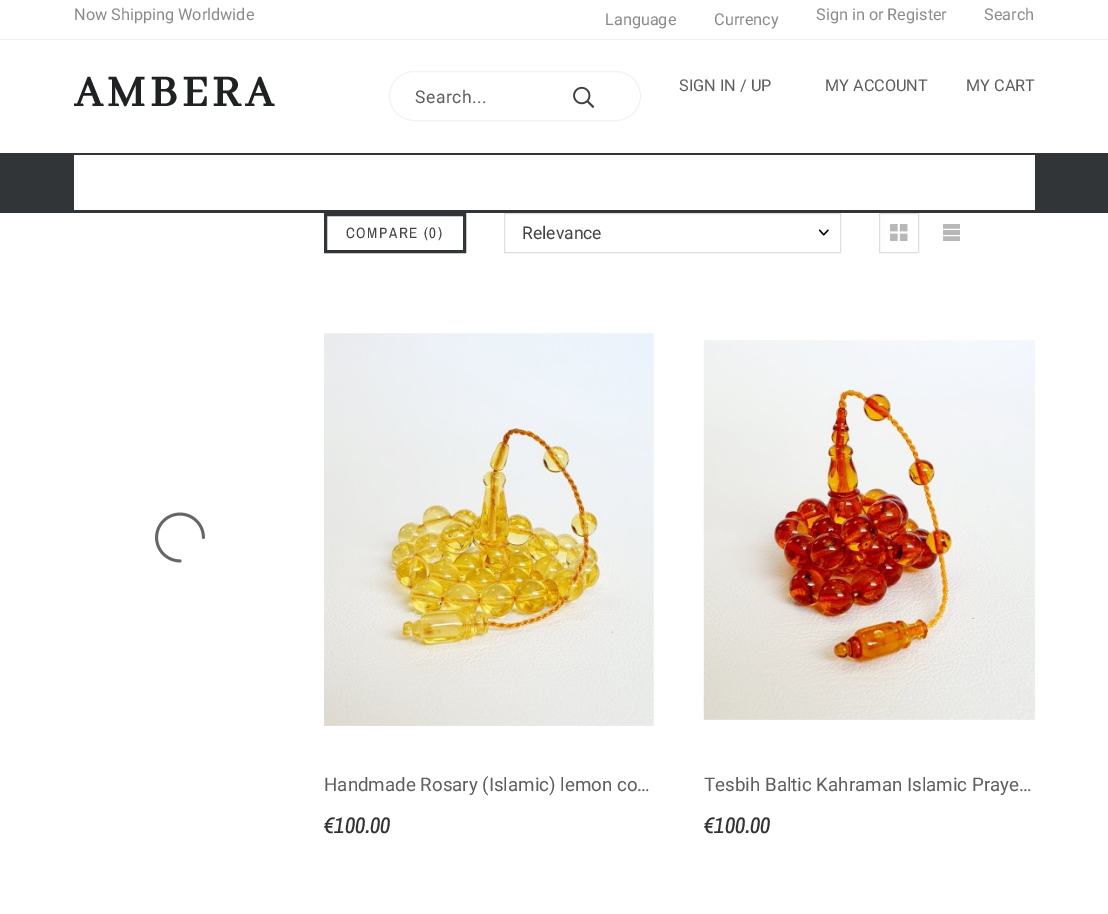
%!PS-Adobe-3.0
%%BoundingBox: 0 0 1108 914
%%LanguageLevel: 3
%%Pages: 1
%%EndComments
%%BeginProlog
/setink { dup -16 bitshift 255 div exch dup -8 bitshift 255 and 255 div exch 255 and 255 div setrgbcolor } def
/usefont { [ exch dup neg 0 0 3 -1 roll 0 0 ] selectfont } def
/rrect { 5 dict begin { /r /h /w /y /x } { exch def } forall
  x r add y moveto x w add y 2 copy h add r arct x w add y h add x 1 index r arct
  x y h add x y r arct x y 2 copy exch w add exch r arct closepath end } def
/drawimage { 5 dict begin { /h /w /y /x /name } { exch def } forall
  gsave x y translate w h scale
  w h 8 [w 0 0 h 0 0] name (r) file false 3 colorimage grestore end } def
%%EndProlog
%%BeginSetup
<< /PageSize [1108 914] >> setpagedevice
%%EndSetup
%%Page: 1 1
0 914 translate 1 -1 scale
4 setmiterlimit
16#FFFFFF setink
0 0 1108 914 rectfill
16#EEEEEE setink
0 39 1108 1 rectfill
/Roboto-Regular 16.25 usefont
16#8A8A8A setink
[
    [(Now Shipping Worldwide) 74 20]
    [(Language) 605 25]
    [(Currency) 714 25]
    [(Sign in or Register) 816 20]
    [(Search) 984 20]
] { aload pop moveto show } forall
/AbhayaLibre-Bold 47.5 usefont
16#1F2223 setink
74 106 moveto 4.75 0 (AMBERA) ashow
/Roboto-Regular 16.25 usefont
16#5E5E5E setink
[
    [(SIGN IN / UP) 679 91]
    [(MY ACCOUNT) 825 91]
    [(MY CART) 966 91]
] { aload pop moveto show } forall
16#F2F2F2 setink
389.5 71.5 251 49 24.5 rrect stroke
/Roboto-Regular 17.5 usefont
16#5E5E5E setink
415 103 moveto 0.5 0 (Search...) ashow
(img1.raw) 573 86 22 23 drawimage
16#313537 setink
0 153 1108 60 rectfill
16#FFFFFF setink
74 155 961 55 rectfill
(img2.raw) 155 512 50 51 drawimage
16#313537 setink
3 setlinewidth
325.5 214.5 139 37 rectstroke
/ArchivoNarrow-Regular 15 usefont
16#444444 setink
346 238 moveto 1.5 0 (COMPARE \(0\)) ashow
16#DFDFDF setink
1 setlinewidth
504.5 213.5 336 39 rectstroke
/Roboto-Regular 17.5 usefont
16#444444 setink
522 239 moveto (Relevance) show
(img3.raw) 819 229 10 7 drawimage
16#DFDFDF setink
879.5 213.5 39 39 rectstroke
(img4.raw) 890 224 18 17 drawimage
(img5.raw) 943 224 17 17 drawimage
(img6.raw) 324 333 330 393 drawimage
/Roboto-Regular 18.75 usefont
16#5E5E5E setink
324 791 moveto (Handmade Rosary \(Islamic\) lemon co…) show
/ArchivoNarrow-MediumItalic 22.5 usefont
16#333333 setink
324 833 moveto (€100.00) show
(img7.raw) 703 340 332 381 drawimage
/Roboto-Regular 18.75 usefont
16#5E5E5E setink
704 791 moveto (Tesbih Baltic Kahraman Islamic Praye…) show
/ArchivoNarrow-MediumItalic 22.5 usefont
16#333333 setink
704 833 moveto (€100.00) show
showpage
%%EOF
